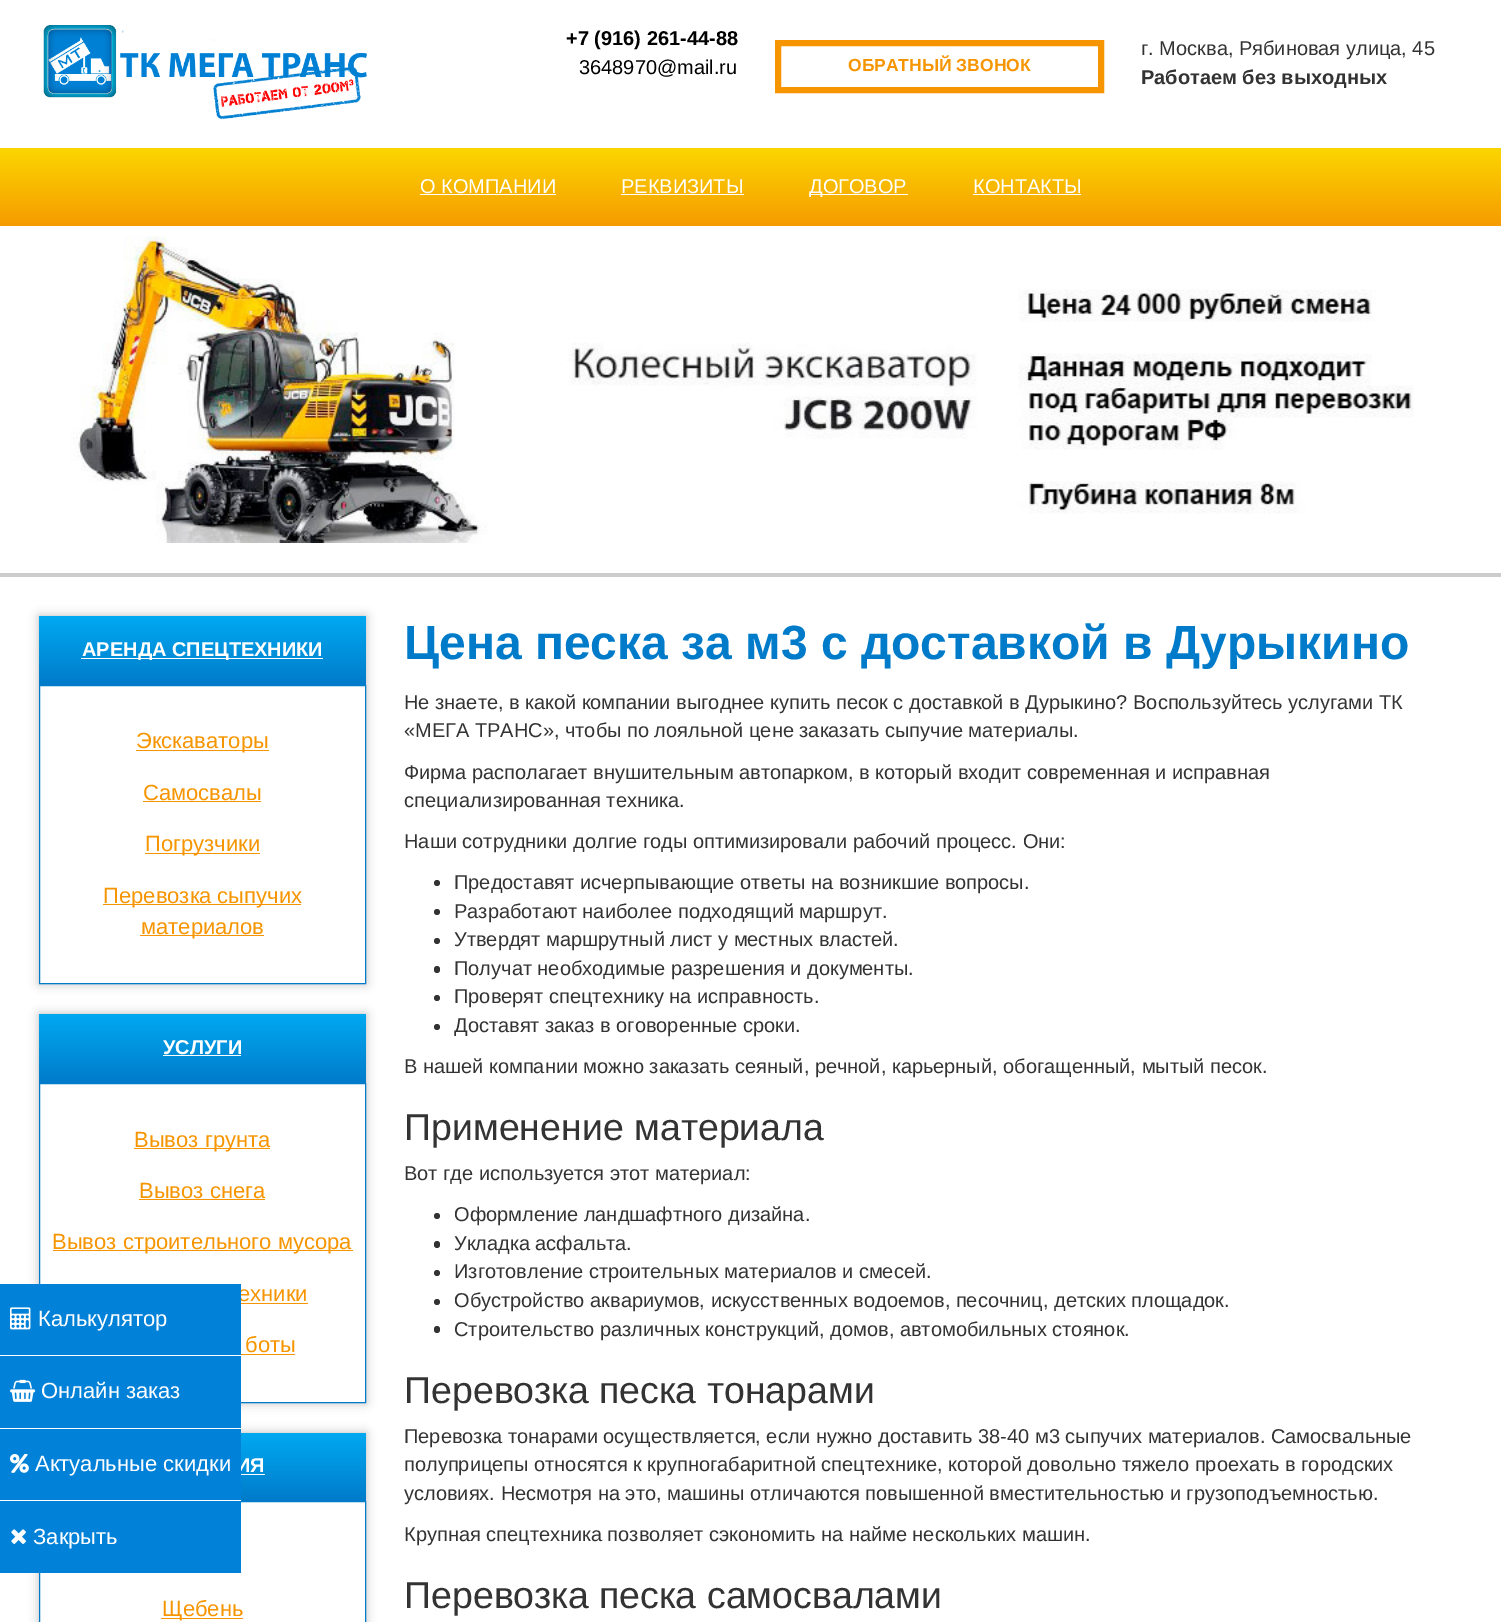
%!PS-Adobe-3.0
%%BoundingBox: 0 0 1501 1622
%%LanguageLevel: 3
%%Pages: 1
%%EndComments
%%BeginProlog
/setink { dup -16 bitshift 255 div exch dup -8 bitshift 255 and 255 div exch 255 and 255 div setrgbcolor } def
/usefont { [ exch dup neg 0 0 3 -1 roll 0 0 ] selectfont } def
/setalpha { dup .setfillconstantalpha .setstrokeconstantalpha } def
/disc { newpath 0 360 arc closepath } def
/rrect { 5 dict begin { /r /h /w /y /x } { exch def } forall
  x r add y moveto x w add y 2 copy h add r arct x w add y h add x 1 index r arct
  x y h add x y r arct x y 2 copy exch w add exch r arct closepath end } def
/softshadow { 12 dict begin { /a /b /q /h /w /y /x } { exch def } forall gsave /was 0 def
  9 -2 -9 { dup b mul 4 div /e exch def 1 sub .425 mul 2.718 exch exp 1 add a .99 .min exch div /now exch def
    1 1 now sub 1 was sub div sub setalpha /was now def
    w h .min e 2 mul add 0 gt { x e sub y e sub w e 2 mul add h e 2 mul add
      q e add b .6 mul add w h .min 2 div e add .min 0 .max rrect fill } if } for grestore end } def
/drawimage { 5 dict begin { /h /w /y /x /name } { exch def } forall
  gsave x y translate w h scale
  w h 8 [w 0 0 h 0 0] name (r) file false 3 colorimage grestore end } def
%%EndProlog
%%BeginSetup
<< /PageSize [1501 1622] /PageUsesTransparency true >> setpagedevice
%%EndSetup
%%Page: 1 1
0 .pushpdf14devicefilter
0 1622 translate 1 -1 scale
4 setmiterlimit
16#FFFFFF setink
0 0 1501 1622 rectfill
(img1.raw) 43 25 324 95 drawimage
/LiberationSans-Bold 20 usefont
16#000000 setink
566 45 moveto (+7 \(916\) 261-44-88) show
/LiberationSans-Regular 20 usefont
579 74 moveto (3648970@mail.ru) show
16#F69500 setink
6 setlinewidth
778 43 323 47 rectstroke
/LiberationSans-Bold 17.5 usefont
848 71 moveto (ОБРАТНЫЙ ЗВОНОК) show
/LiberationSans-Regular 20 usefont
16#333333 setink
1141 55 moveto (г. Москва, Рябиновая улица, 45) show
/LiberationSans-Bold 20 usefont
1141 84 moveto (Работаем без выходных) show
gsave 0 148 moveto 1501 148 lineto 1501 226 lineto 0 226 lineto closepath clip newpath
<< /ShadingType 2 /ColorSpace /DeviceRGB /Coords [751 147 751 226] /Extend [true true] /Function << /FunctionType 2 /Domain [0 1] /C0 [0.984 0.843 0] /C1 [0.965 0.608 0] /N 1 >> >> shfill grestore
/LiberationSans-Regular 20 usefont
16#FFFFFF setink
420 193 moveto (О КОМПАНИИ) show
420 194 136 1 rectfill
621 193 moveto (РЕКВИЗИТЫ) show
621 194 123 1 rectfill
809 194 99 1 rectfill
809 193 moveto (ДОГОВОР) show
973 193 moveto (КОНТАКТЫ) show
973 194 108 1 rectfill
16#CCCCCC setink
0 573 1501 4 rectfill
(img2.raw) 71 236 1343 307 drawimage
gsave
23 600 moveto 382 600 lineto 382 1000 lineto 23 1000 lineto closepath 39 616 moveto 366 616 lineto 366 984 lineto 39 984 lineto closepath eoclip newpath
16#BBBBBB setink
39 616 327 368 0 5 1 softshadow
grestore
gsave 39 616 moveto 366 616 lineto 366 685 lineto 39 685 lineto closepath clip newpath
<< /ShadingType 2 /ColorSpace /DeviceRGB /Coords [203 616 203 685] /Extend [true true] /Function << /FunctionType 2 /Domain [0 1] /C0 [0 0.663 0.945] /C1 [0 0.482 0.792] /N 1 >> >> shfill grestore
16#FFFFFF setink
81 658 242 1 rectfill
/LiberationSans-Bold 20 usefont
82 656 moveto (АРЕНДА СПЕЦТЕХНИКИ) show
16#007BCA setink
1 setlinewidth
39.5 685.5 326 298 rectstroke
16#F69500 setink
136 750 133 1 rectfill
/LiberationSans-Regular 22 usefont
136 748 moveto (Экскаваторы) show
143 800 moveto (Cамосвалы) show
143 801 118 1 rectfill
145 853 115 1 rectfill
145 851 moveto (Погрузчики) show
103 904 198 1 rectfill
103 903 moveto (Перевозка сыпучих) show
140 935 124 1 rectfill
141 934 moveto (материалов) show
gsave
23 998 moveto 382 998 lineto 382 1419 lineto 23 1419 lineto closepath 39 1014 moveto 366 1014 lineto 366 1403 lineto 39 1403 lineto closepath eoclip newpath
16#BBBBBB setink
39 1014 327 389 0 5 1 softshadow
grestore
gsave 39 1014 moveto 366 1014 lineto 366 1083 lineto 39 1083 lineto closepath clip newpath
<< /ShadingType 2 /ColorSpace /DeviceRGB /Coords [203 1014 203 1083] /Extend [true true] /Function << /FunctionType 2 /Domain [0 1] /C0 [0 0.663 0.945] /C1 [0 0.482 0.792] /N 1 >> >> shfill grestore
/LiberationSans-Bold 20 usefont
16#FFFFFF setink
163 1054 moveto (УСЛУГИ) show
163 1055 78 1 rectfill
16#007BCA setink
39.5 1083.5 326 319 rectstroke
16#F69500 setink
134 1148 136 1 rectfill
/LiberationSans-Regular 22 usefont
134 1147 moveto (Вывоз грунта) show
139 1198 moveto (Вывоз снега) show
139 1199 126 1 rectfill
53 1250 300 1 rectfill
52 1249 moveto (Вывоз строительного мусора) show
238 1301 moveto (ехники) show
241 1303 67 1 rectfill
245 1352 moveto (боты) show
241 1354 54 1 rectfill
gsave
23 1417 moveto 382 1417 lineto 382 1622 lineto 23 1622 lineto closepath 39 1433 moveto 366 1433 lineto 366 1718 lineto 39 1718 lineto closepath eoclip newpath
16#BBBBBB setink
39 1433 327 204 0 5 1 softshadow
grestore
gsave 241 1433 moveto 366 1433 lineto 366 1501 lineto 241 1501 lineto closepath clip newpath
<< /ShadingType 2 /ColorSpace /DeviceRGB /Coords [203 1433 203 1501] /Extend [true true] /Function << /FunctionType 2 /Domain [0 1] /C0 [0 0.663 0.945] /C1 [0 0.482 0.792] /N 1 >> >> shfill grestore
/LiberationSans-Bold 20 usefont
16#FFFFFF setink
236 1472 moveto (ИЯ) show
241 1474 24 1 rectfill
16#007BCA setink
39.5 1501.5 326 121 rectstroke
16#F69500 setink
161 1618 82 1 rectfill
/LiberationSans-Regular 22 usefont
162 1616 moveto (Щебень) show
/LiberationSans-Bold 48 usefont
16#007BCA setink
404 659 moveto (Цена песка за м3 с доставкой в Дурыкино) show
/LiberationSans-Regular 20 usefont
16#333333 setink
[
    [(Не знаете, в какой компании выгоднее купить песок с доставкой в Дурыкино? Воспользуйтесь услугами ТК) 404 709]
    [(«МЕГА ТРАНС», чтобы по лояльной цене заказать сыпучие материалы.) 404 737]
    [(Фирма располагает внушительным автопарком, в который входит современная и исправная) 404 779]
    [(специализированная техника.) 404 807]
    [(Наши сотрудники долгие годы оптимизировали рабочий процесс. Они:) 404 848]
] { aload pop moveto show } forall
437 883 3 disc fill
454 889 moveto (Предоставят исчерпывающие ответы на возникшие вопросы.) show
437 912 3 disc fill
454 918 moveto (Разработают наиболее подходящий маршрут.) show
437 941 3 disc fill
454 946 moveto (Утвердят маршрутный лист у местных властей.) show
434 966 6 7 3 rrect fill
454 975 moveto (Получат необходимые разрешения и документы.) show
437 998 3 disc fill
454 1003 moveto (Проверят спецтехнику на исправность.) show
437 1027 3 disc fill
454 1032 moveto (Доставят заказ в оговоренные сроки.) show
404 1073 moveto (В нашей компании можно заказать сеяный, речной, карьерный, обогащенный, мытый песок.) show
/LiberationSans-Regular 37.5 usefont
404 1140 moveto (Применение материала) show
/LiberationSans-Regular 20 usefont
404 1180 moveto (Вот где используется этот материал:) show
437 1216 3 disc fill
454 1221 moveto (Оформление ландшафтного дизайна.) show
434 1241 6 7 3 rrect fill
454 1250 moveto (Укладка асфальта.) show
437 1273 3 disc fill
454 1278 moveto (Изготовление строительных материалов и смесей.) show
437 1302 3 disc fill
454 1307 moveto (Обустройство аквариумов, искусственных водоемов, песочниц, детских площадок.) show
434 1326 6 7 3 rrect fill
454 1336 moveto (Строительство различных конструкций, домов, автомобильных стоянок.) show
/LiberationSans-Regular 37.5 usefont
404 1403 moveto (Перевозка песка тонарами) show
/LiberationSans-Regular 20 usefont
[
    [(Перевозка тонарами осуществляется, если нужно доставить 38-40 м3 сыпучих материалов. Самосвальные) 404 1443]
    [(полуприцепы относятся к крупногабаритной спецтехнике, которой довольно тяжело проехать в городских) 404 1471]
    [(условиях. Несмотря на это, машины отличаются повышенной вместительностью и грузоподъемностью.) 404 1500]
    [(Крупная спецтехника позволяет сэкономить на найме нескольких машин.) 404 1541]
] { aload pop moveto show } forall
/LiberationSans-Regular 37.5 usefont
404 1608 moveto (Перевозка песка самосвалами) show
16#0181D8 setink
0 1284 241 289 rectfill
16#FFFFFF setink
0 1355 241 1 rectfill
(img3.raw) 10 1307 21 23 drawimage
/LiberationSans-Regular 22 usefont
38 1326 moveto (Калькулятор) show
0 1428 241 1 rectfill
(img4.raw) 10 1379 26 23 drawimage
41 1398 moveto (Онлайн заказ) show
0 1500 241 1 rectfill
(img5.raw) 10 1453 19 20 drawimage
35 1471 moveto (Актуальные скидки) show
(img6.raw) 11 1529 15 15 drawimage
33 1544 moveto (Закрыть) show
.poppdf14devicefilter showpage
%%EOF
